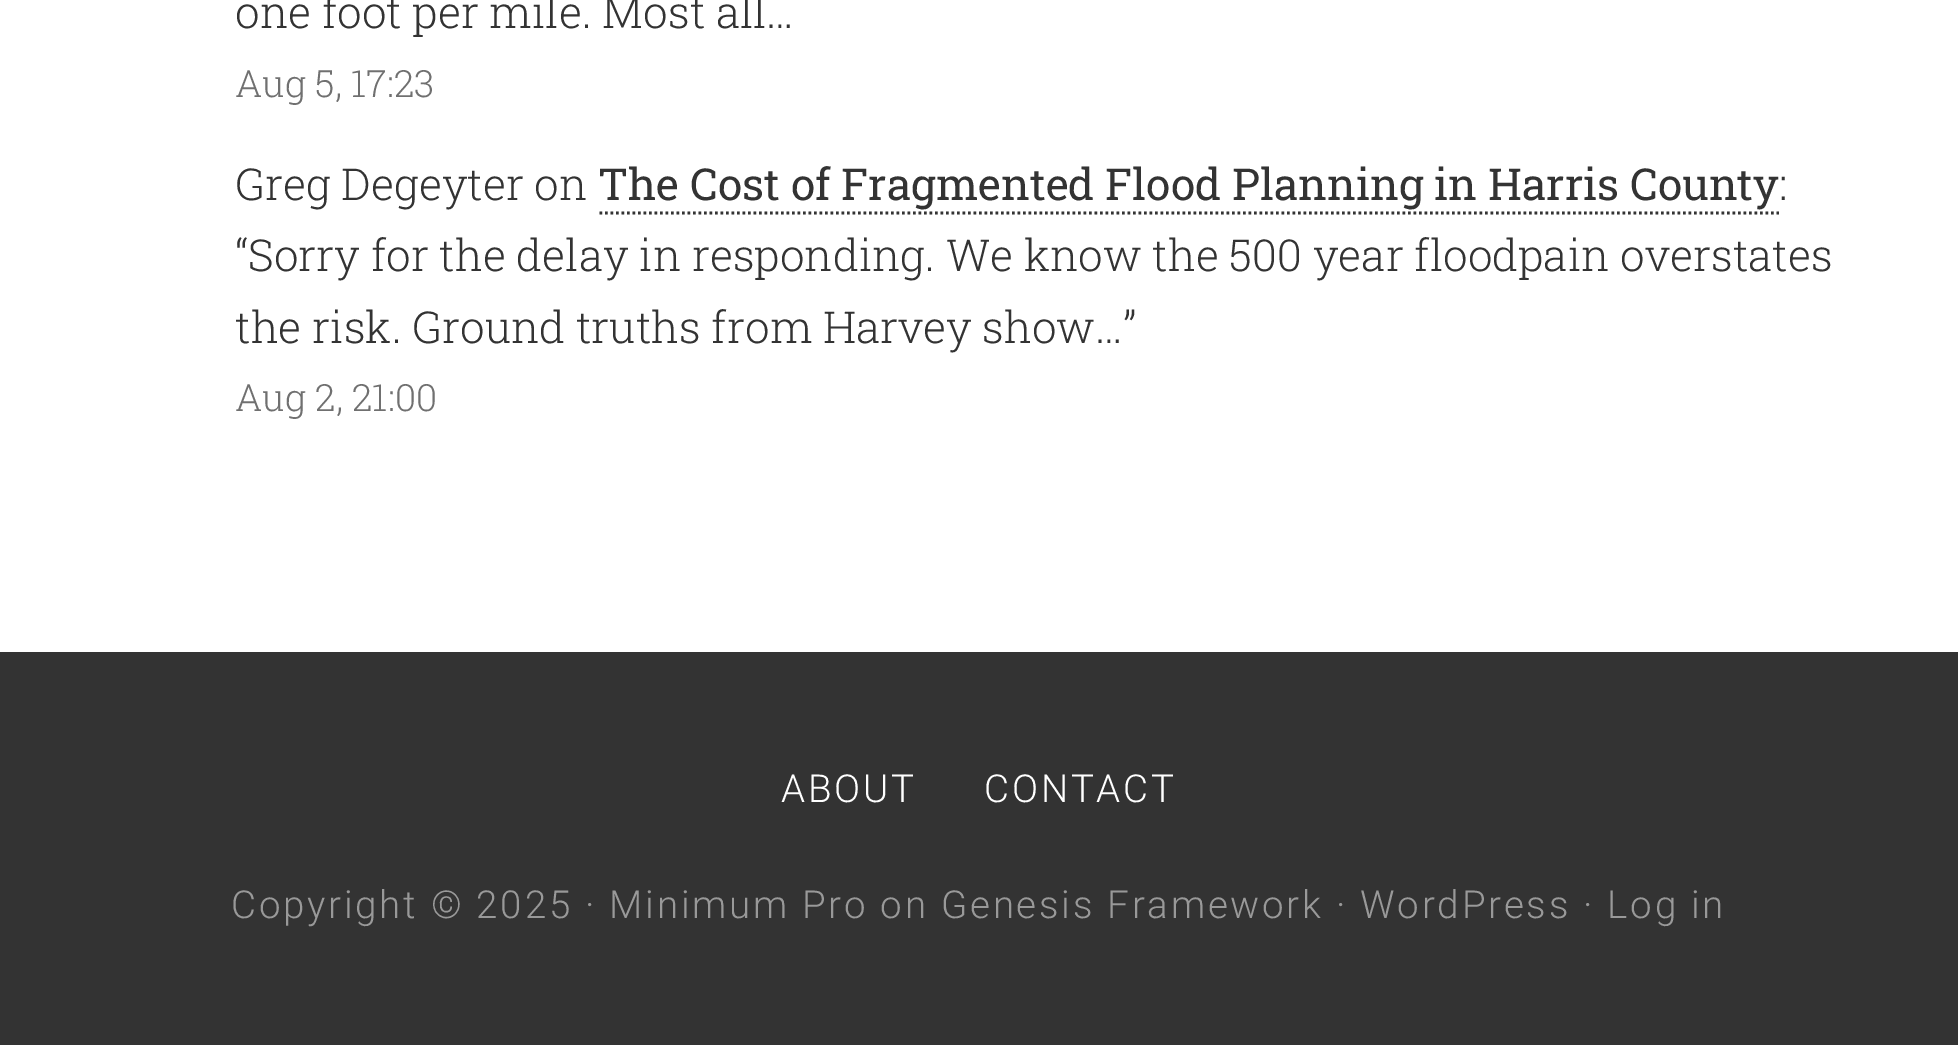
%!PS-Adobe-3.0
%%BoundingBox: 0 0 1958 1045
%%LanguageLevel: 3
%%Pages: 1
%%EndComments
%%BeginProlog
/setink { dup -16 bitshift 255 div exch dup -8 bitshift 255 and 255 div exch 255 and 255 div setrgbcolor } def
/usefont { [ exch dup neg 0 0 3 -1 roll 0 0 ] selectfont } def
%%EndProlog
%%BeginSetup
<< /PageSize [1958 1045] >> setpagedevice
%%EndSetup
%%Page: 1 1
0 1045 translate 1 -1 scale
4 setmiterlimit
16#FFFFFF setink
0 0 1958 1045 rectfill
/RobotoSlab-Light 44 usefont
16#333333 setink
235 28 moveto (one foot per mile. Most all…) show
/RobotoSlab-Light 37.5 usefont
16#707070 setink
235 97 moveto (Aug 5, 17:23) show
/RobotoSlab-Light 44 usefont
16#333333 setink
235 200 moveto (Greg Degeyter on) show
/RobotoSlab-Regular 44 usefont
598 200 moveto (The Cost of Fragmented Flood Planning in Harris County) show
2.8 setlinewidth
[2.75 2.75] 0 setdash
599.5 213 moveto 1779 213 lineto stroke
/RobotoSlab-Light 44 usefont
[
    [(:) 1779 200]
    [(“Sorry for the delay in responding. We know the 500 year floodpain overstates) 235 271]
    [(the risk. Ground truths from Harvey show…”) 235 343]
] { aload pop moveto show } forall
/RobotoSlab-Light 37.5 usefont
16#707070 setink
235 411 moveto (Aug 2, 21:00) show
16#333333 setink
0 652 1958 393 rectfill
/Roboto-Light 38.5 usefont
16#FFFFFF setink
781 802 moveto 2.75 0 (ABOUT) ashow
984 802 moveto 2.75 0 (CONTACT) ashow
16#999999 setink
231 918 moveto 2.75 0 (Copyright © 2025 · Minimum Pro on Genesis Framework · WordPress · Log in) ashow
showpage
%%EOF
